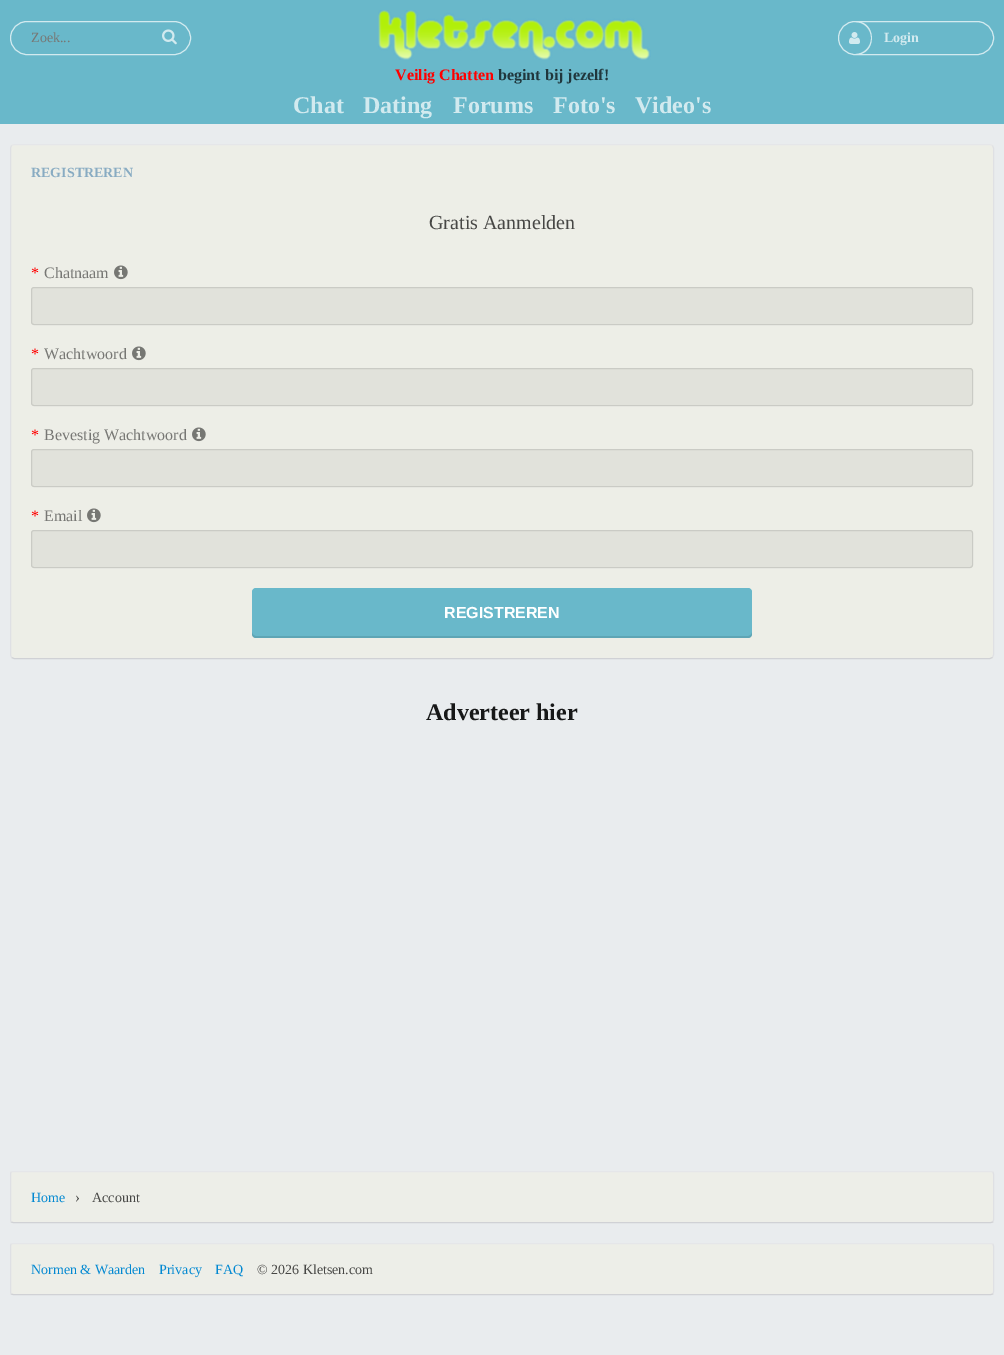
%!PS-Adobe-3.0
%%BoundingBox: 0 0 1004 1355
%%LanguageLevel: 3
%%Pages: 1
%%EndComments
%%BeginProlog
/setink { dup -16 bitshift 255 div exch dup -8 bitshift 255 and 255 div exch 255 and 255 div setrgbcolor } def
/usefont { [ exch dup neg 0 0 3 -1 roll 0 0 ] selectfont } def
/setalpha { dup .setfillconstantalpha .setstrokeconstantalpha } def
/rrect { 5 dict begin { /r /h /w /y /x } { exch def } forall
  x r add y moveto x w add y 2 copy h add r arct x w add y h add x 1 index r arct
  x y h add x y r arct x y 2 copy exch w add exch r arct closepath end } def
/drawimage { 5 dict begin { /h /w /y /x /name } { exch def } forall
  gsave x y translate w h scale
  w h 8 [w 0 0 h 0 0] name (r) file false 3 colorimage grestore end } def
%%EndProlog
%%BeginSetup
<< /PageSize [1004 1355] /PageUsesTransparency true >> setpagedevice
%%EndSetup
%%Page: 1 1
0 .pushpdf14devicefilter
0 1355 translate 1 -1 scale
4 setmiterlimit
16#E9ECEE setink
0 0 1004 1355 rectfill
16#69B8CA setink
0 0 1004 124 rectfill
16#D2EAEF setink
10.5 21.5 180 33 16.5 rrect stroke
/LiberationSerif-Regular 14 usefont
16#777774 setink
31 42 moveto (Zoek...) show
(img1.raw) 162 29 15 16 drawimage
(img2.raw) 378 10 273 50 drawimage
16#D2EAEF setink
838.5 21.5 155 33 16.5 rrect stroke
855 22 moveto 861 22 lineto 875.5 26.5 875.5 49.5 861 54 curveto 855 54 lineto 864 54 871 47 871 38 curveto 871 29 864 22 855 22 curveto closepath fill
(img3.raw) 849 32 11 12 drawimage
/LiberationSerif-Bold 14 usefont
884 42 moveto (Login) show
/LiberationSerif-Bold 16 usefont
16#FF0000 setink
395 80 moveto (Veilig Chatten) show
16#20373D setink
498 80 moveto (begint bij jezelf!) show
/LiberationSerif-Bold 24 usefont
16#D2EAEF setink
[
    [(Chat) 293 113]
    [(Dating) 363 113]
    [(Forums) 453 113]
    [(Foto's) 553 113]
    [(Video's) 635 113]
] { aload pop moveto show } forall
16#EDEEE7 setink
10 144 984 515 4 rrect fill
16#E5E6E9 setink
11.5 145.5 moveto 14 144.5 lineto 990 144.5 lineto 992.5 145.5 lineto stroke
16#DFE0E4 setink
992.5 145.5 moveto 993.5 148 lineto 993.5 655 lineto 992.5 657.5 lineto stroke
16#D0D1D5 setink
992.5 657.5 moveto 990 658.5 lineto 14 658.5 lineto 11.5 657.5 lineto stroke
16#DFE0E4 setink
11.5 657.5 moveto 10.5 655 lineto 10.5 148 lineto 11.5 145.5 lineto stroke
/LiberationSerif-Bold 14 usefont
16#88ABC2 setink
31 177 moveto (REGISTREREN) show
/LiberationSerif-Regular 20 usefont
16#474745 setink
429 229 moveto (Gratis Aanmelden) show
/LiberationSerif-Regular 16 usefont
16#FF0000 setink
31 278 moveto (*) show
16#777774 setink
44 278 moveto (Chatnaam) show
(img4.raw) 114 265 14 15 drawimage
16#E1E2DB setink
31 287 942 38 3 rrect fill
0.1 setalpha
16#000000 setink
31.5 287.5 941 37 2.5 rrect stroke
1 setalpha
16#FF0000 setink
31 359 moveto (*) show
16#777774 setink
44 359 moveto (Wachtwoord) show
(img4.raw) 132 346 14 15 drawimage
16#E1E2DB setink
31 368 942 38 3 rrect fill
0.1 setalpha
16#000000 setink
31.5 368.5 941 37 2.5 rrect stroke
1 setalpha
16#FF0000 setink
31 440 moveto (*) show
16#777774 setink
44 440 moveto (Bevestig Wachtwoord) show
(img4.raw) 192 427 14 15 drawimage
16#E1E2DB setink
31 449 942 38 3 rrect fill
0.1 setalpha
16#000000 setink
31.5 449.5 941 37 2.5 rrect stroke
1 setalpha
16#FF0000 setink
31 521 moveto (*) show
16#777774 setink
44 521 moveto (Email) show
(img4.raw) 87 508 14 15 drawimage
16#E1E2DB setink
31 530 942 38 3 rrect fill
0.1 setalpha
16#000000 setink
31.5 530.5 941 37 2.5 rrect stroke
1 setalpha
16#69B8CA setink
252 588 500 50 4 rrect fill
0.1 setalpha
16#000000 setink
252 632 moveto 252 635 252 638 256 638 curveto 748 638 lineto 752 638 752 635 752 632 curveto 752 634 750 636 748 636 curveto 256 636 lineto 254 636 252 634 252 632 curveto closepath fill
/LiberationSans-Bold 16 usefont
1 setalpha
16#FFFFFF setink
444 618 moveto (REGISTREREN) show
/LiberationSerif-Bold 24 usefont
16#171818 setink
426 720 moveto (Adverteer hier) show
16#EDEEE8 setink
10 1171 984 52 3 rrect fill
16#E5E6E9 setink
11 1172 moveto 13 1171.5 lineto 991 1171.5 lineto 993 1172 lineto stroke
16#DFE0E4 setink
993 1172 moveto 993.5 1174 lineto 993.5 1220 lineto 993 1222 lineto stroke
16#D0D1D5 setink
993 1222 moveto 991 1222.5 lineto 13 1222.5 lineto 11 1222 lineto stroke
16#DFE0E4 setink
11 1222 moveto 10.5 1220 lineto 10.5 1174 lineto 11 1172 lineto stroke
/LiberationSerif-Regular 14 usefont
16#0288D1 setink
31 1202 moveto (Home) show
/LiberationSerif-Regular 15 usefont
16#474745 setink
75 1202 moveto (›) show
/LiberationSerif-Regular 14 usefont
92 1202 moveto (Account) show
16#EDEEE8 setink
10 1243 984 52 3 rrect fill
16#E5E6E9 setink
11 1244 moveto 13 1243.5 lineto 991 1243.5 lineto 993 1244 lineto stroke
16#DFE0E4 setink
993 1244 moveto 993.5 1246 lineto 993.5 1292 lineto 993 1294 lineto stroke
16#D0D1D5 setink
993 1294 moveto 991 1294.5 lineto 13 1294.5 lineto 11 1294 lineto stroke
16#DFE0E4 setink
11 1294 moveto 10.5 1292 lineto 10.5 1246 lineto 11 1244 lineto stroke
16#0288D1 setink
[
    [(Normen & Waarden) 31 1274]
    [(Privacy) 159 1274]
    [(FAQ) 215 1274]
] { aload pop moveto show } forall
16#474745 setink
257 1274 moveto (© 2026 Kletsen.com) show
.poppdf14devicefilter showpage
%%EOF
